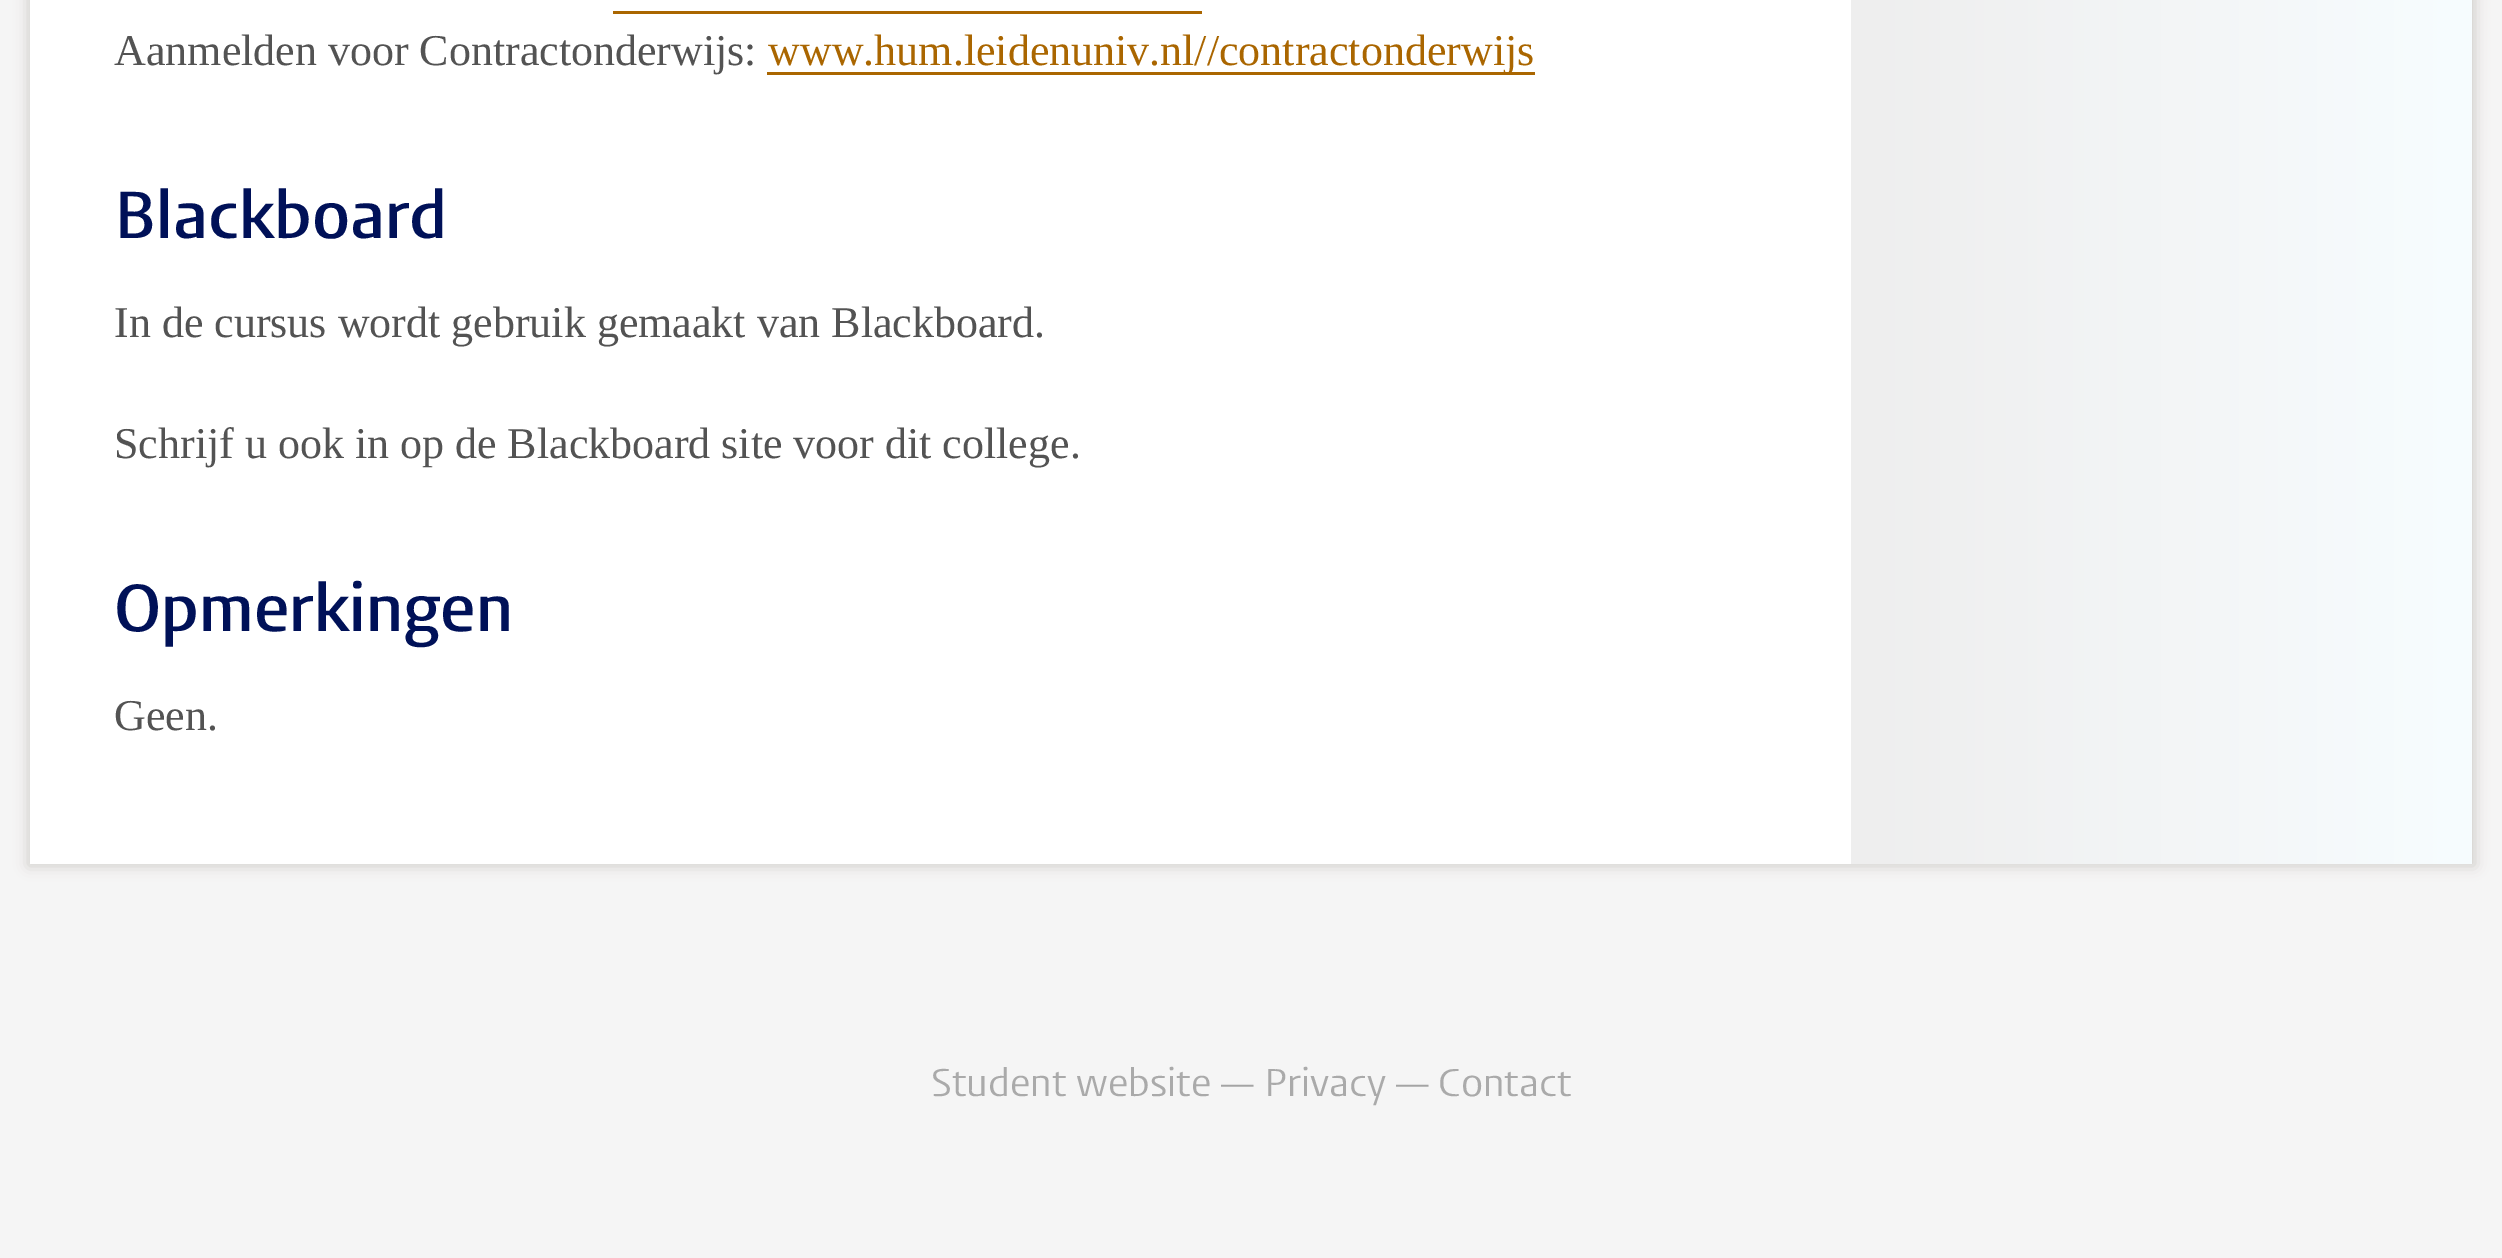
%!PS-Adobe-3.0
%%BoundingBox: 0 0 2502 1258
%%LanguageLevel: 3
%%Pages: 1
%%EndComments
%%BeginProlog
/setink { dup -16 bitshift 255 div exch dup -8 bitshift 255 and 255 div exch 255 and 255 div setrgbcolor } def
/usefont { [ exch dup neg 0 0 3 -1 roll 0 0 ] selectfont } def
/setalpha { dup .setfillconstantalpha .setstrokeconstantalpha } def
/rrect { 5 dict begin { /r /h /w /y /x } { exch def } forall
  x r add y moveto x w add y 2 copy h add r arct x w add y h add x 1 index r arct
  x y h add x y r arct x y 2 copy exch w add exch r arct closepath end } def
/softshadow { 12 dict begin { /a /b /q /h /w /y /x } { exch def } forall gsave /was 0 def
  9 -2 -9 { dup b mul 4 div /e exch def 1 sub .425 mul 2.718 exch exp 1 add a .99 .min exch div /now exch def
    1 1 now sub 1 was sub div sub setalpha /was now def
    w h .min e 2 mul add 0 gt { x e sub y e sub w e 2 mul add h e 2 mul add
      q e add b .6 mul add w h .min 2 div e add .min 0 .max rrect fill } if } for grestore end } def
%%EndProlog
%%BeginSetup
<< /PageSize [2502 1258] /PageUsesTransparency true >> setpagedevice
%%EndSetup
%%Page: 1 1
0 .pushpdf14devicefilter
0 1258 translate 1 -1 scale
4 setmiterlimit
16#F5F5F5 setink
0 0 2502 1258 rectfill
16#786E64 setink
28 -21 2447 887 0 7 0.3 softshadow
16#FFFFFF setink
30 0 1821 864 rectfill
16#AA6600 setink
613 11 589 3 rectfill
/LiberationSerif-Regular 44 usefont
16#535353 setink
114 65 moveto (Aanmelden voor Contractonderwijs:) show
16#AA6600 setink
767 72 768 3 rectfill
768 65 moveto (www.hum.leidenuniv.nl//contractonderwijs) show
/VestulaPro-SemiBold 66 usefont
16#001158 setink
114 238 moveto (Blackboard) show
/LiberationSerif-Regular 44 usefont
16#535353 setink
114 337 moveto (In de cursus wordt gebruik gemaakt van Blackboard.) show
114 458 moveto (Schrijf u ook in op de Blackboard site voor dit college.) show
/VestulaPro-SemiBold 66 usefont
16#001158 setink
114 631 moveto (Opmerkingen) show
/LiberationSerif-Regular 44 usefont
16#535353 setink
114 730 moveto (Geen.) show
gsave 1851 0 moveto 2472 0 lineto 2472 864 lineto 1851 864 lineto closepath clip newpath
<< /ShadingType 2 /ColorSpace /DeviceRGB /Coords [1851 -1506 2472 -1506] /Extend [true true] /Function << /FunctionType 2 /Domain [0 1] /C0 [0.933 0.933 0.933] /C1 [0.969 0.992 1] /N 1 >> >> shfill grestore
/VestulaPro-Regular 38.5 usefont
16#AAAAAA setink
931 1096 moveto (Student website) show
16#A4A4A4 setink
1221 1096 moveto (—) show
16#AAAAAA setink
1264 1096 moveto (Privacy) show
16#A4A4A4 setink
1396 1096 moveto (—) show
16#AAAAAA setink
1438 1096 moveto (Contact) show
.poppdf14devicefilter showpage
%%EOF
